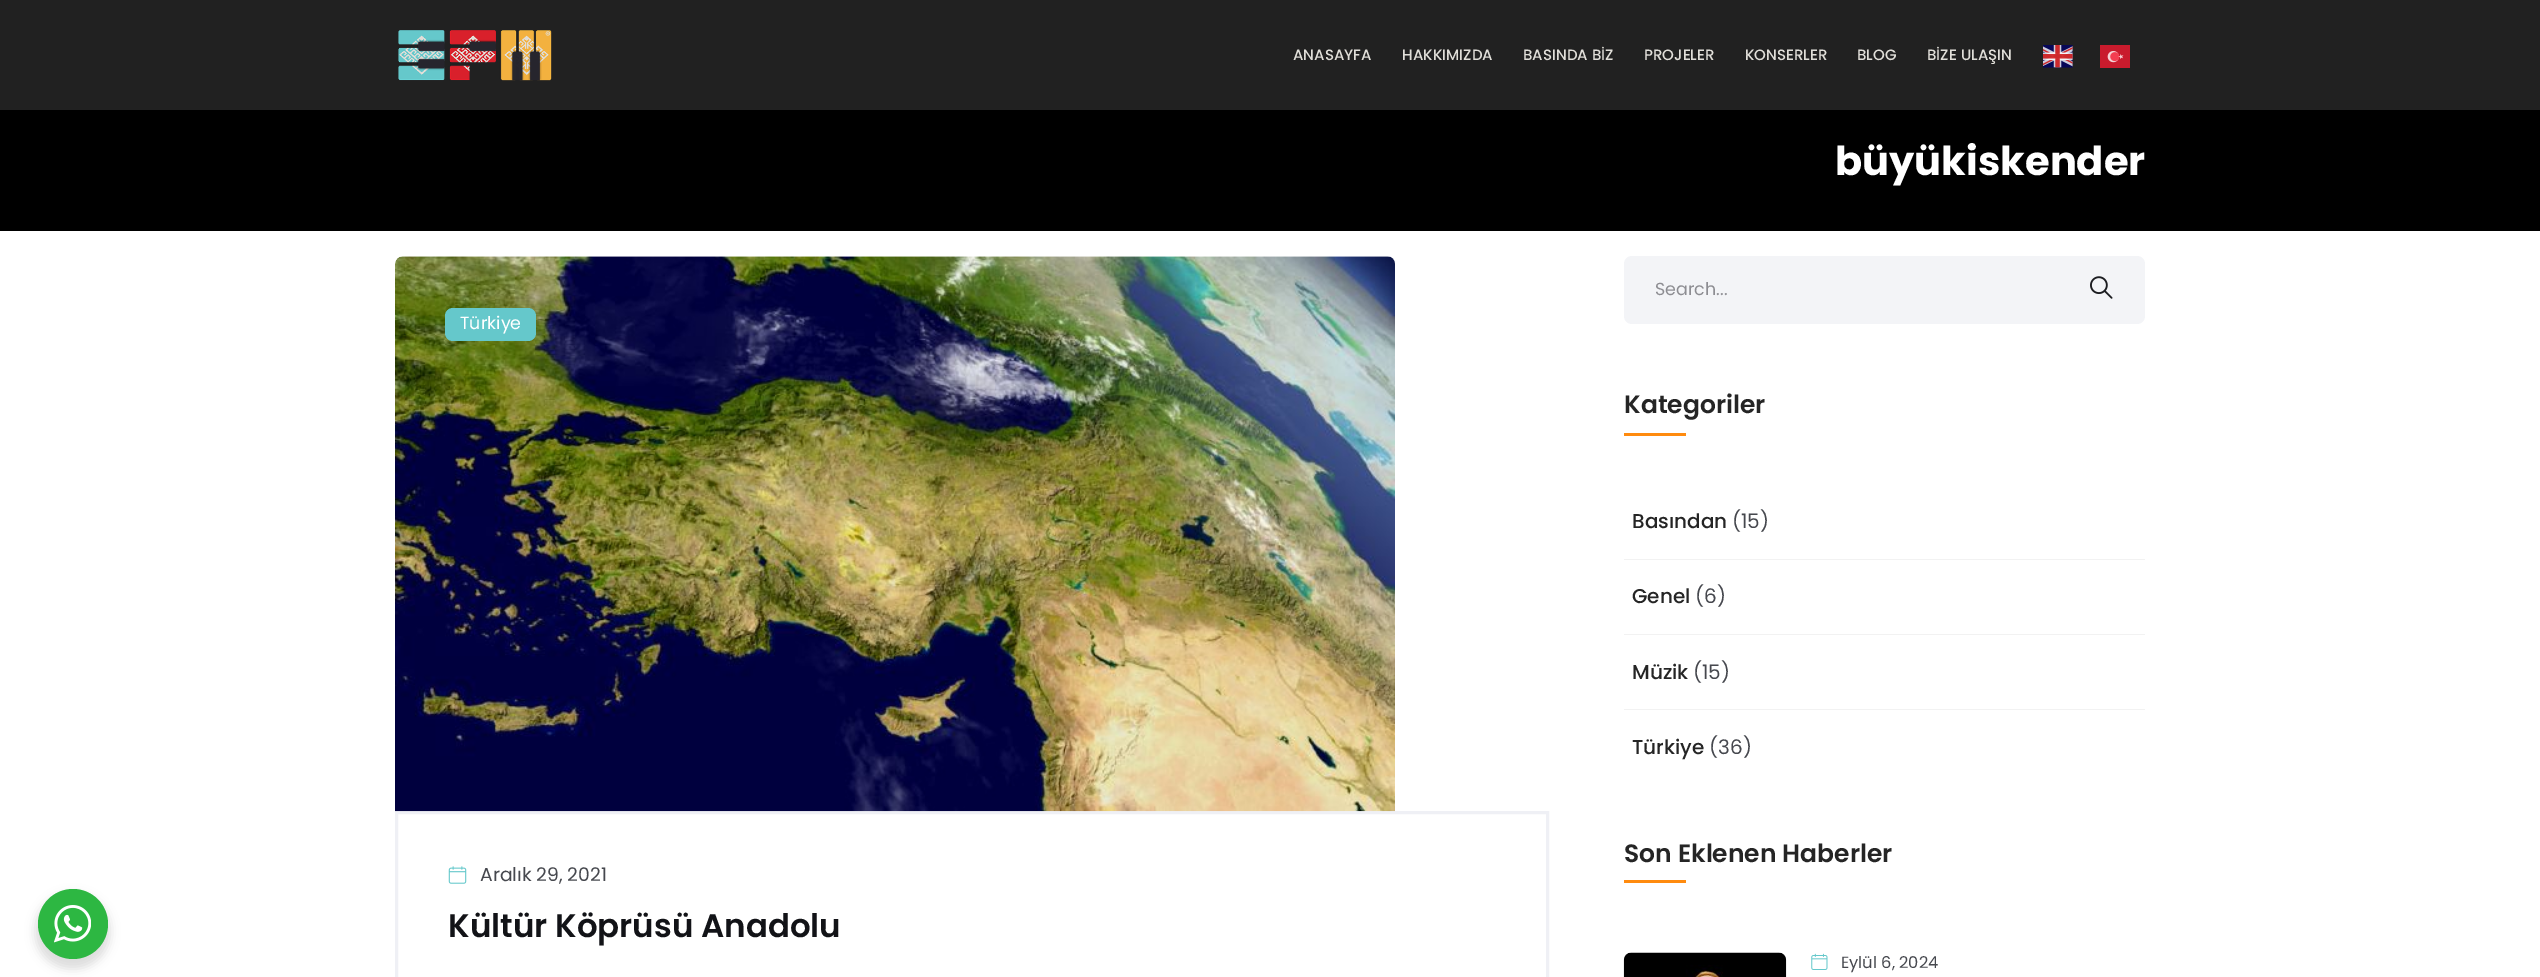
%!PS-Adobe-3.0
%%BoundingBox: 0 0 2540 977
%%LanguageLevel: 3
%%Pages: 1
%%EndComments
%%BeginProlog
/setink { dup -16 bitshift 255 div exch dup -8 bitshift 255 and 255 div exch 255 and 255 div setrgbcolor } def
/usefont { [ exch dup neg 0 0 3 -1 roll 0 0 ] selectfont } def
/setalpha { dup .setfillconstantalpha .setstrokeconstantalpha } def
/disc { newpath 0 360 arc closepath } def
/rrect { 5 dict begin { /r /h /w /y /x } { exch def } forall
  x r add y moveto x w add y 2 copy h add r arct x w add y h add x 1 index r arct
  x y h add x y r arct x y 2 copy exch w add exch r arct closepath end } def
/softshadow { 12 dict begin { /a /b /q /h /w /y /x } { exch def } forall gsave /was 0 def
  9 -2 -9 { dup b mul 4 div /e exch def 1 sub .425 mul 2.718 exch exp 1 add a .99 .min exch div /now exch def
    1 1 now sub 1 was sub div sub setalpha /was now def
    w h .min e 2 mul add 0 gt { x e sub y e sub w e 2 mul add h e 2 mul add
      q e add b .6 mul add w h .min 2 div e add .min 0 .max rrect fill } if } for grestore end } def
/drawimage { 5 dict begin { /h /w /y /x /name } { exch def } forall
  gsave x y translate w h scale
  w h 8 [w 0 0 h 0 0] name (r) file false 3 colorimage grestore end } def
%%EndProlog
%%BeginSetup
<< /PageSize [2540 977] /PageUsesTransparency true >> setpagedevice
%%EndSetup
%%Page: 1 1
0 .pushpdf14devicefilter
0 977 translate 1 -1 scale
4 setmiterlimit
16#FFFFFF setink
0 0 2540 977 rectfill
16#000000 setink
35 894 75 75 37.5 5 0.14 softshadow
16#2DB742 setink
73 924 35 disc fill
(img1.raw) 54 905 37 38 drawimage
16#212121 setink
0 0 2540 110 rectfill
(img2.raw) 398 30 154 51 drawimage
/Poppins-Medium 15 usefont
16#E1DFD9 setink
[
    [(ANASAYFA) 1293 60]
    [(HAKKIMIZDA) 1402 60]
    [(BASINDA BİZ) 1523 60]
    [(PROJELER) 1644 60]
    [(KONSERLER) 1745 60]
    [(BLOG) 1857 60]
    [(BİZE ULAŞIN) 1927 60]
] { aload pop moveto show } forall
(img3.raw) 2043 45 30 23 drawimage
(img4.raw) 2100 45 30 23 drawimage
16#000000 setink
0 110 2540 121 rectfill
/Poppins-Bold 40 usefont
16#FFFFFF setink
1835 175 moveto (büyükiskender) show
16#EFF0F5 setink
3 setlinewidth
396.5 812.5 1151 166 rectstroke
(img5.raw) 395 256 1000 556 drawimage
16#65C8CB setink
445 308 91 33 8 rrect fill
/Poppins-Regular 17.5 usefont
16#FFFFFF setink
460 329 moveto (Türkiye) show
(img6.raw) 448 866 19 18 drawimage
/Poppins-Regular 18.75 usefont
16#46484E setink
480 881 moveto (Aralık 29, 2021) show
/Poppins-SemiBold 32.5 usefont
16#121317 setink
448 937 moveto (Kültür Köprüsü Anadolu) show
16#F3F4F7 setink
1624 256 521 68 8 rrect fill
/Poppins-Regular 17.5 usefont
16#8D8D92 setink
1655 295 moveto (Search...) show
(img7.raw) 2090 276 23 23 drawimage
/Poppins-SemiBold 25 usefont
16#252525 setink
1624 413 moveto (Kategoriler) show
16#FF8B0E setink
1624 433 62 3 rectfill
/Poppins-Medium 20 usefont
16#252525 setink
1632 528 moveto (Basından) show
/Poppins-Regular 20 usefont
16#46484E setink
1732 528 moveto (\(15\)) show
16#F2F2F2 setink
1624 559 521 1 rectfill
/Poppins-Medium 20 usefont
16#252525 setink
1632 603 moveto (Genel) show
/Poppins-Regular 20 usefont
16#46484E setink
1695 603 moveto (\(6\)) show
16#F2F2F2 setink
1624 634 521 1 rectfill
/Poppins-Medium 20 usefont
16#252525 setink
1632 679 moveto (Müzik) show
/Poppins-Regular 20 usefont
16#46484E setink
1693 679 moveto (\(15\)) show
16#F2F2F2 setink
1624 709 521 1 rectfill
/Poppins-Medium 20 usefont
16#252525 setink
1632 754 moveto (Türkiye) show
/Poppins-Regular 20 usefont
16#46484E setink
1709 754 moveto (\(36\)) show
/Poppins-SemiBold 25 usefont
16#252525 setink
1624 862 moveto (Son Eklenen Haberler) show
16#FF8B0E setink
1624 880 62 3 rectfill
(img8.raw) 1623 952 164 25 drawimage
(img9.raw) 1811 953 17 17 drawimage
/Poppins-Regular 16.25 usefont
16#46484E setink
1841 968 moveto (Eylül 6, 2024) show
.poppdf14devicefilter showpage
%%EOF
